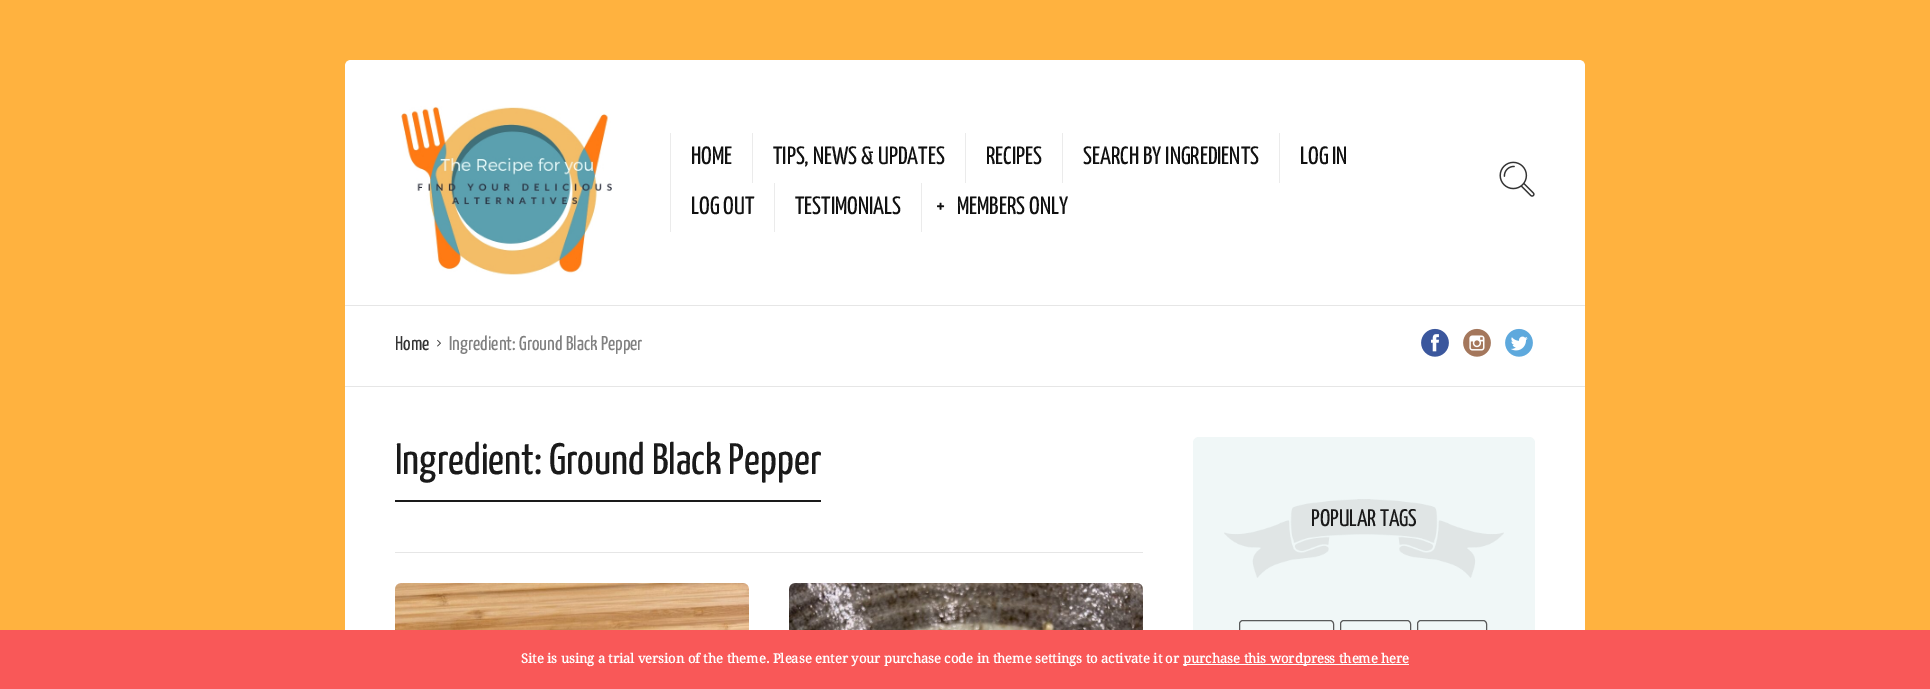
%!PS-Adobe-3.0
%%BoundingBox: 0 0 1930 689
%%LanguageLevel: 3
%%Pages: 1
%%EndComments
%%BeginProlog
/setink { dup -16 bitshift 255 div exch dup -8 bitshift 255 and 255 div exch 255 and 255 div setrgbcolor } def
/usefont { [ exch dup neg 0 0 3 -1 roll 0 0 ] selectfont } def
/rrect { 5 dict begin { /r /h /w /y /x } { exch def } forall
  x r add y moveto x w add y 2 copy h add r arct x w add y h add x 1 index r arct
  x y h add x y r arct x y 2 copy exch w add exch r arct closepath end } def
/drawimage { 5 dict begin { /h /w /y /x /name } { exch def } forall
  gsave x y translate w h scale
  w h 8 [w 0 0 h 0 0] name (r) file false 3 colorimage grestore end } def
%%EndProlog
%%BeginSetup
<< /PageSize [1930 689] >> setpagedevice
%%EndSetup
%%Page: 1 1
0 689 translate 1 -1 scale
4 setmiterlimit
16#FFB23F setink
0 0 1930 689 rectfill
16#FFFFFF setink
351 60 moveto 1579 60 lineto 1582.5 60 1585 62.5 1585 66 curveto 1585 305 lineto 345 305 lineto 345 66 lineto 345 62.5 347.5 60 351 60 curveto closepath fill
(img1.raw) 401 106 211 169 drawimage
16#EBEBEB setink
670 133 1 99 rectfill
/YanoneKaffeesatz-ExtraLight 25 usefont
16#111111 setink
691 164 moveto (HOME) show
16#EBEBEB setink
752 133 1 50 rectfill
16#111111 setink
773 164 moveto (TIPS, NEWS & UPDATES) show
16#EBEBEB setink
965 133 1 50 rectfill
16#111111 setink
986 164 moveto (RECIPES) show
16#EBEBEB setink
1062 133 1 50 rectfill
16#111111 setink
1083 164 moveto (SEARCH BY INGREDIENTS) show
16#EBEBEB setink
1279 133 1 50 rectfill
16#111111 setink
1300 164 moveto (LOG IN) show
691 214 moveto (LOG OUT) show
16#EBEBEB setink
774 183 1 49 rectfill
16#111111 setink
795 214 moveto (TESTIMONIALS) show
16#EBEBEB setink
921 183 1 49 rectfill
(img2.raw) 937 202 8 8 drawimage
16#111111 setink
957 214 moveto (MEMBERS ONLY) show
(img3.raw) 1499 161 36 36 drawimage
[
    [345 306 1240 80 16#FFFFFF]
    [345 305 1240 1 16#E6E6E6]
    [345 386 1240 1 16#E6E6E6]
] { aload pop setink rectfill } forall
/YanoneKaffeesatz-ExtraLight 20 usefont
16#333333 setink
395 350 moveto (Home) show
(img4.raw) 437 339 4 8 drawimage
16#808080 setink
449 350 moveto (Ingredient: Ground Black Pepper) show
(img5.raw) 1421 328 28 29 drawimage
(img6.raw) 1463 328 28 29 drawimage
(img7.raw) 1505 328 28 29 drawimage
[
    [345 387 1240 243 16#FFFFFF]
    [395 552 748 1 16#E6E6E6]
    [395 500 426 2 16#1A1A1A]
] { aload pop setink rectfill } forall
/YanoneKaffeesatz-ExtraLight 44 usefont
395 474 moveto (Ingredient: Ground Black Pepper) show
(img8.raw) 395 583 354 47 drawimage
(img9.raw) 789 583 354 47 drawimage
16#F0F7F7 setink
1193 437 342 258 6 rrect fill
(img10.raw) 1224 499 280 79 drawimage
/YanoneKaffeesatz-ExtraLight 24 usefont
16#1A1A1A setink
1311 526 moveto (POPULAR TAGS) show
16#595A5A setink
1239.5 620.5 94 21 3.5 rrect stroke
1340.5 620.5 70 21 3.5 rrect stroke
1417.5 620.5 69 21 3.5 rrect stroke
16#F95858 setink
0 630 1930 59 rectfill
/DroidSerif-Bold 13 usefont
16#FFFFFF setink
521 663 moveto (Site is using a trial version of the theme. Please enter your purchase code in theme settings to activate it or) show
1183 664 226 1 rectfill
1183 663 moveto (purchase this wordpress theme here) show
showpage
%%EOF
